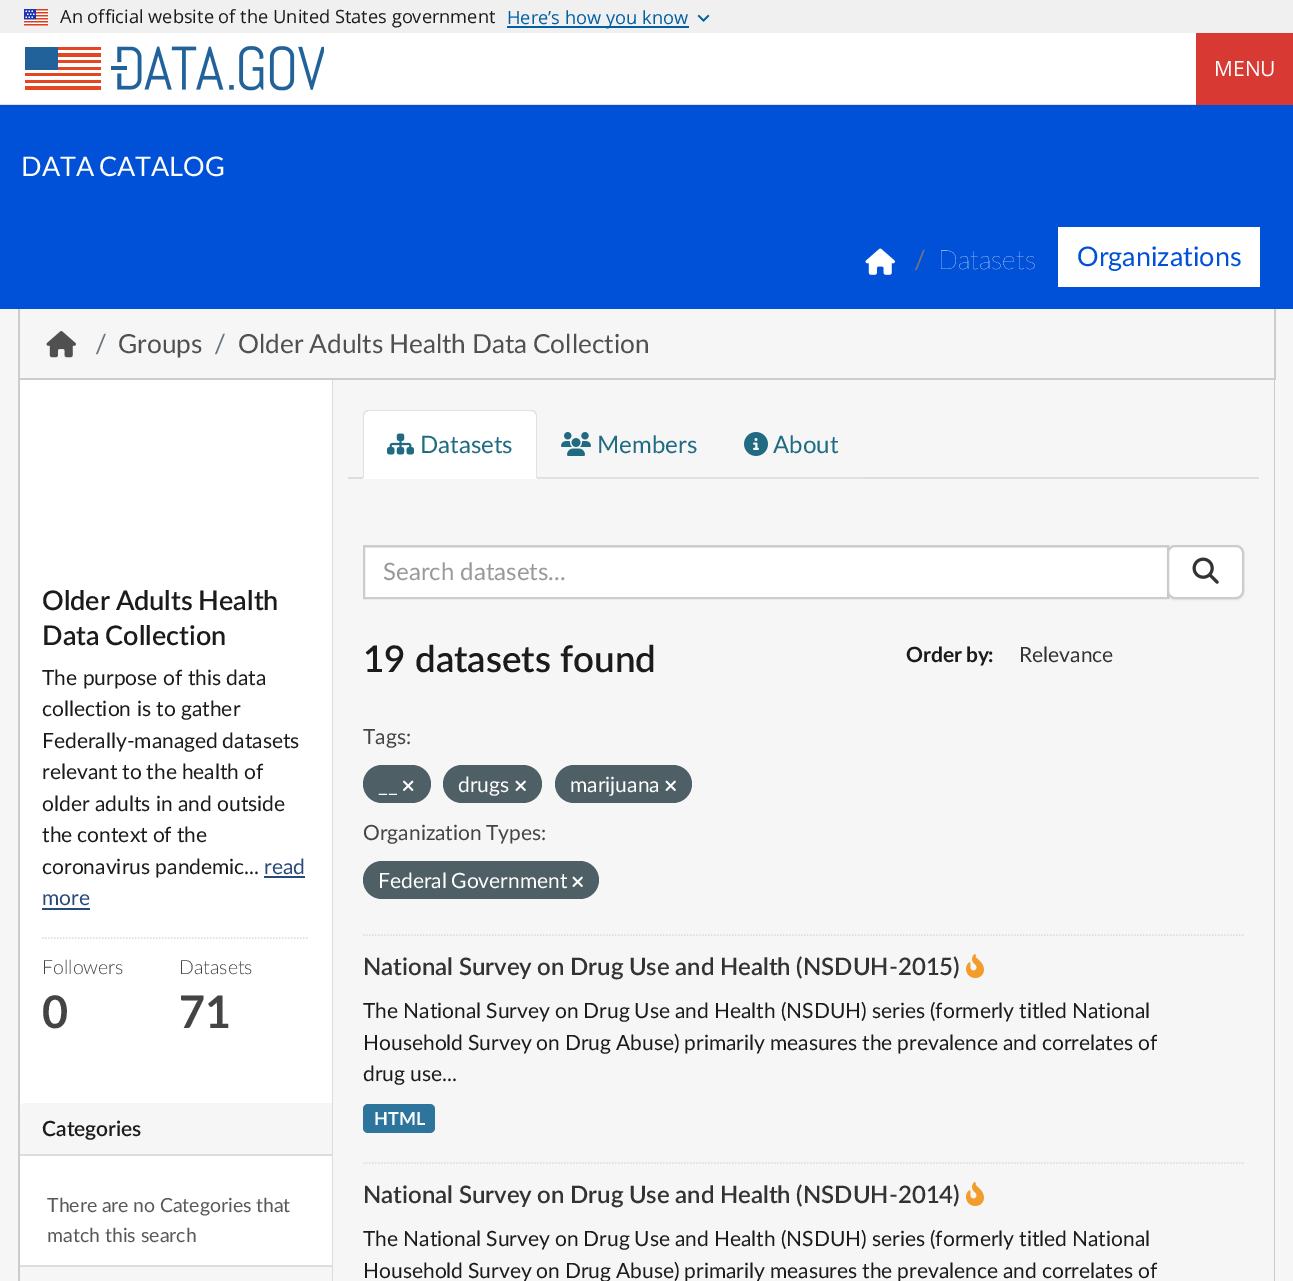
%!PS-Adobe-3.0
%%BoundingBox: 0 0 1293 1281
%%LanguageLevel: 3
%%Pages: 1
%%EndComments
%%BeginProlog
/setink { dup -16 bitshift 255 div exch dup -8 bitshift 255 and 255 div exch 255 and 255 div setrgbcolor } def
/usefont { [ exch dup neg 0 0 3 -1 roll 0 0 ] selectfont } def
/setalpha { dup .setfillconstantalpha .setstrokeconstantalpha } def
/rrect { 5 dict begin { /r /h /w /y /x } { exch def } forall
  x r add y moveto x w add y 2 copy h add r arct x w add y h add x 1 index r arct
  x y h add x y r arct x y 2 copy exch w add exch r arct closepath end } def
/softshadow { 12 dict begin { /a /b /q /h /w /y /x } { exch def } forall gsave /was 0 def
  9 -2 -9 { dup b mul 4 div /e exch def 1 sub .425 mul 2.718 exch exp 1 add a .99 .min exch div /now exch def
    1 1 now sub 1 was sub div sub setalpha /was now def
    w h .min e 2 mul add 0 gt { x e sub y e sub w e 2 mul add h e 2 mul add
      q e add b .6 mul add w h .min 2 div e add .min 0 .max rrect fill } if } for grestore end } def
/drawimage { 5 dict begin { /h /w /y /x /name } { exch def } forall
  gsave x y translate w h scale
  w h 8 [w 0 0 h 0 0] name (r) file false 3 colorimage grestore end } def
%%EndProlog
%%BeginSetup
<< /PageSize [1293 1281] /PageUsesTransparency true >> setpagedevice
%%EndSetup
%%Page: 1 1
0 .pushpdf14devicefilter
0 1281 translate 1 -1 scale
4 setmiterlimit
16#F6F6F6 setink
0 0 1293 1281 rectfill
16#F0F0F0 setink
0 0 1293 33 rectfill
(img1.raw) 24 9 24 17 drawimage
/OpenSans-Regular 18.25 usefont
16#1B1B1B setink
60 23 moveto (An official website of the United States government) show
16#005EA2 setink
507 26 182 2 rectfill
507 24 moveto (Here’s how you know) show
(img2.raw) 697 14 13 8 drawimage
16#FFFFFF setink
0 33 1196 71 rectfill
16#DFE1E2 setink
0 104 1196 1 rectfill
(img3.raw) 25 46 299 45 drawimage
16#D83933 setink
1196 33 97 72 rectfill
/OpenSans-Regular 21 usefont
16#FFFFFF setink
1214 76 moveto (MENU) show
16#0050D8 setink
0 105 1293 204 rectfill
/Lato-Regular 27 usefont
16#FFFFFF setink
21 176 moveto -2 0 32 (DATA CATALOG) widthshow
(img4.raw) 865 248 30 27 drawimage
/Lato-Regular 26.25 usefont
16#6C757D setink
914 269 moveto (/) show
/Lato-ExtraLight 26.25 usefont
16#FFFFFF setink
938 269 moveto (Datasets) show
1058 227 202 60 rectfill
/Lato-Regular 27 usefont
16#0050D8 setink
1077 266 moveto (Organizations) show
[
    [1274 309 2 71 16#CCCCCC]
    [18 378 1257 2 16#CCCCCC]
    [18 309 2 71 16#CCCCCC]
] { aload pop setink rectfill } forall
(img5.raw) 46 331 30 27 drawimage
/Lato-Regular 26.25 usefont
16#6C757D setink
95 353 moveto (/) show
16#505050 setink
118 353 moveto (Groups) show
16#6C757D setink
214 353 moveto (/) show
16#505050 setink
238 353 moveto -1 0 32 (Older Adults Health Data Collection) widthshow
16#FFFFFF setink
20 380 312 885 rectfill
16#CCCCCC setink
18 380 moveto 1275 380 lineto 1275 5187 lineto 1275 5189 1273 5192 1270 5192 curveto 22 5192 lineto 20 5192 18 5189 18 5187 curveto closepath 20 380 moveto 1274 380 lineto 1274 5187 lineto 1274 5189 1272 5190 1270 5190 curveto 22 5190 lineto 21 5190 20 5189 20 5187 curveto closepath eofill
/Lato-SemiBold 27 usefont
16#1B1B1B setink
42 610 moveto -1 0 32 (Older Adults Health) widthshow
42 645 moveto -1 0 32 (Data Collection) widthshow
/Lato-Regular 21 usefont
42 685 moveto (The purpose of this data) show
42 716 moveto (collection is to gather) show
42 748 moveto -1 0 32 (Federally-managed datasets) widthshow
42 779 moveto -0.5 0 32 (relevant to the health of) widthshow
42 811 moveto (older adults in and outside) show
42 842 moveto -0.4 0 32 (the context of the) widthshow
42 874 moveto (coronavirus pandemic...) show
16#284A7A setink
264 874 moveto (read) show
264 876 41 2 rectfill
42 905 moveto (more) show
42 908 48 2 rectfill
16#DDDDDD setink
1.5 setlinewidth
[1.5 1.5] 0 setdash
42 938 moveto 309 938 lineto stroke
/Lato-Light 19.5 usefont
16#444444 setink
42 974 moveto (Followers) show
/Lato-Bold 45 usefont
42 1028 moveto (0) show
/Lato-Light 19.5 usefont
179 974 moveto (Datasets) show
/Lato-Bold 45 usefont
179 1028 moveto (71) show
16#F6F6F6 setink
25 1103 moveto 332 1103 lineto 332 1155 lineto 20 1155 lineto 20 1108 lineto 20 1105 22 1103 25 1103 curveto closepath fill
16#DDDDDD setink
20 1154 312 2 rectfill
/Lato-SemiBold 21 usefont
16#1B1B1B setink
42 1136 moveto (Categories) show
/Lato-Regular 19.5 usefont
16#595959 setink
47 1212 moveto -0.5 0 32 (There are no Categories that) widthshow
47 1242 moveto (match this search) show
[
    [20 1265 312 2 16#DDDDDD]
    [332 380 1 901 16#DDDDDD]
    [348 477 911 2 16#DDDDDD]
    [537 477 326 2 16#DEE2E6]
] { aload pop setink rectfill } forall
16#FFFFFF setink
369 410 moveto 531 410 lineto 534.5 410 537 412.5 537 416 curveto 537 479 lineto 363 479 lineto 363 416 lineto 363 412.5 365.5 410 369 410 curveto closepath fill
16#DEE2E6 setink
369 410 moveto 368 410 366 410 365 411 curveto 366 412 lineto 369 411 lineto 531 411 lineto 534 412 lineto 535 411 lineto 534 410 532 410 531 410 curveto closepath fill
535 411 moveto 536 412 537 414 537 416 curveto 537 478 lineto 536 478 lineto 536 477 lineto 536 415 lineto 534 412 lineto closepath fill
363 416 moveto 363 478 lineto 364 478 lineto 364 477 lineto 364 415 lineto 366 412 lineto 365 411 lineto 364 412 363 414 363 416 curveto closepath fill
(img6.raw) 387 433 27 22 drawimage
/Lato-Regular 24 usefont
16#206B82 setink
420 453 moveto (Datasets) show
(img7.raw) 561 432 30 24 drawimage
597 453 moveto (Members) show
(img8.raw) 744 432 24 24 drawimage
773 453 moveto (About) show
16#FFFFFF setink
365 548 802 49 rectfill
16#ECECEC setink
365 547 802 1 rectfill
16#CCCCCC setink
2 setlinewidth
[] 0 setdash
364 546 804 52 rectstroke
16#999999 setink
383 580 moveto (Search datasets...) show
16#000000 setink
1167 546 77 54 8 1 0.07 softshadow
16#FFFFFF setink
1168 546 75 52 7 rrect gsave fill grestore
16#CCCCCC setink
stroke
(img9.raw) 1192 557 27 27 drawimage
/Lato-SemiBold 36.75 usefont
16#1B1B1B setink
363 672 moveto (19 datasets found) show
/Lato-Bold 21 usefont
906 662 moveto -1 0 32 (Order by) widthshow
988 662 moveto (:) show
/Lato-Regular 21 usefont
16#333333 setink
1019 662 moveto (Relevance) show
16#444444 setink
363 744 moveto (Tags:) show
16#4E5F65 setink
363 765 68 38 19 rrect fill
(img10.raw) 403 780 11 11 drawimage
16#FFFFFF setink
378 792 moveto (__) show
16#4E5F65 setink
443 765 99 38 19 rrect fill
16#FFFFFF setink
458 792 moveto (drugs) show
(img11.raw) 515 780 11 11 drawimage
16#4E5F65 setink
555 765 137 38 19 rrect fill
16#FFFFFF setink
570 792 moveto (marijuana) show
(img11.raw) 665 780 11 11 drawimage
16#444444 setink
363 840 moveto -1 0 32 (Organization Types:) widthshow
16#4E5F65 setink
363 861 236 38 19 rrect fill
16#FFFFFF setink
378 888 moveto -1 0 32 (Federal Government) widthshow
(img11.raw) 572 876 11 11 drawimage
16#DDDDDD setink
1.5 setlinewidth
[1.5 1.5] 0 setdash
363 935 moveto 1243.5 935 lineto stroke
/Lato-SemiBold 24 usefont
16#333333 setink
363 975 moveto -0.5 0 32 (National Survey on Drug Use and Health \(NSDUH-2015\)) widthshow
(img12.raw) 966 954 18 24 drawimage
/Lato-Regular 21 usefont
16#1B1B1B setink
363 1018 moveto -0.4 0 32 (The National Survey on Drug Use and Health \(NSDUH\) series \(formerly titled National) widthshow
363 1050 moveto -0.5 0 32 (Household Survey on Drug Abuse\) primarily measures the prevalence and correlates of) widthshow
363 1081 moveto (drug use...) show
16#2E759E setink
363 1104 72 29 5 rrect fill
/Lato-Bold 18 usefont
16#FFFFFF setink
374 1125 moveto (HTML) show
16#DDDDDD setink
363 1163 moveto 1243.5 1163 lineto stroke
/Lato-SemiBold 24 usefont
16#333333 setink
363 1203 moveto -0.5 0 32 (National Survey on Drug Use and Health \(NSDUH-2014\)) widthshow
(img12.raw) 966 1182 18 24 drawimage
/Lato-Regular 21 usefont
16#1B1B1B setink
363 1246 moveto -0.4 0 32 (The National Survey on Drug Use and Health \(NSDUH\) series \(formerly titled National) widthshow
363 1278 moveto -0.5 0 32 (Household Survey on Drug Abuse\) primarily measures the prevalence and correlates of) widthshow
.poppdf14devicefilter showpage
%%EOF
